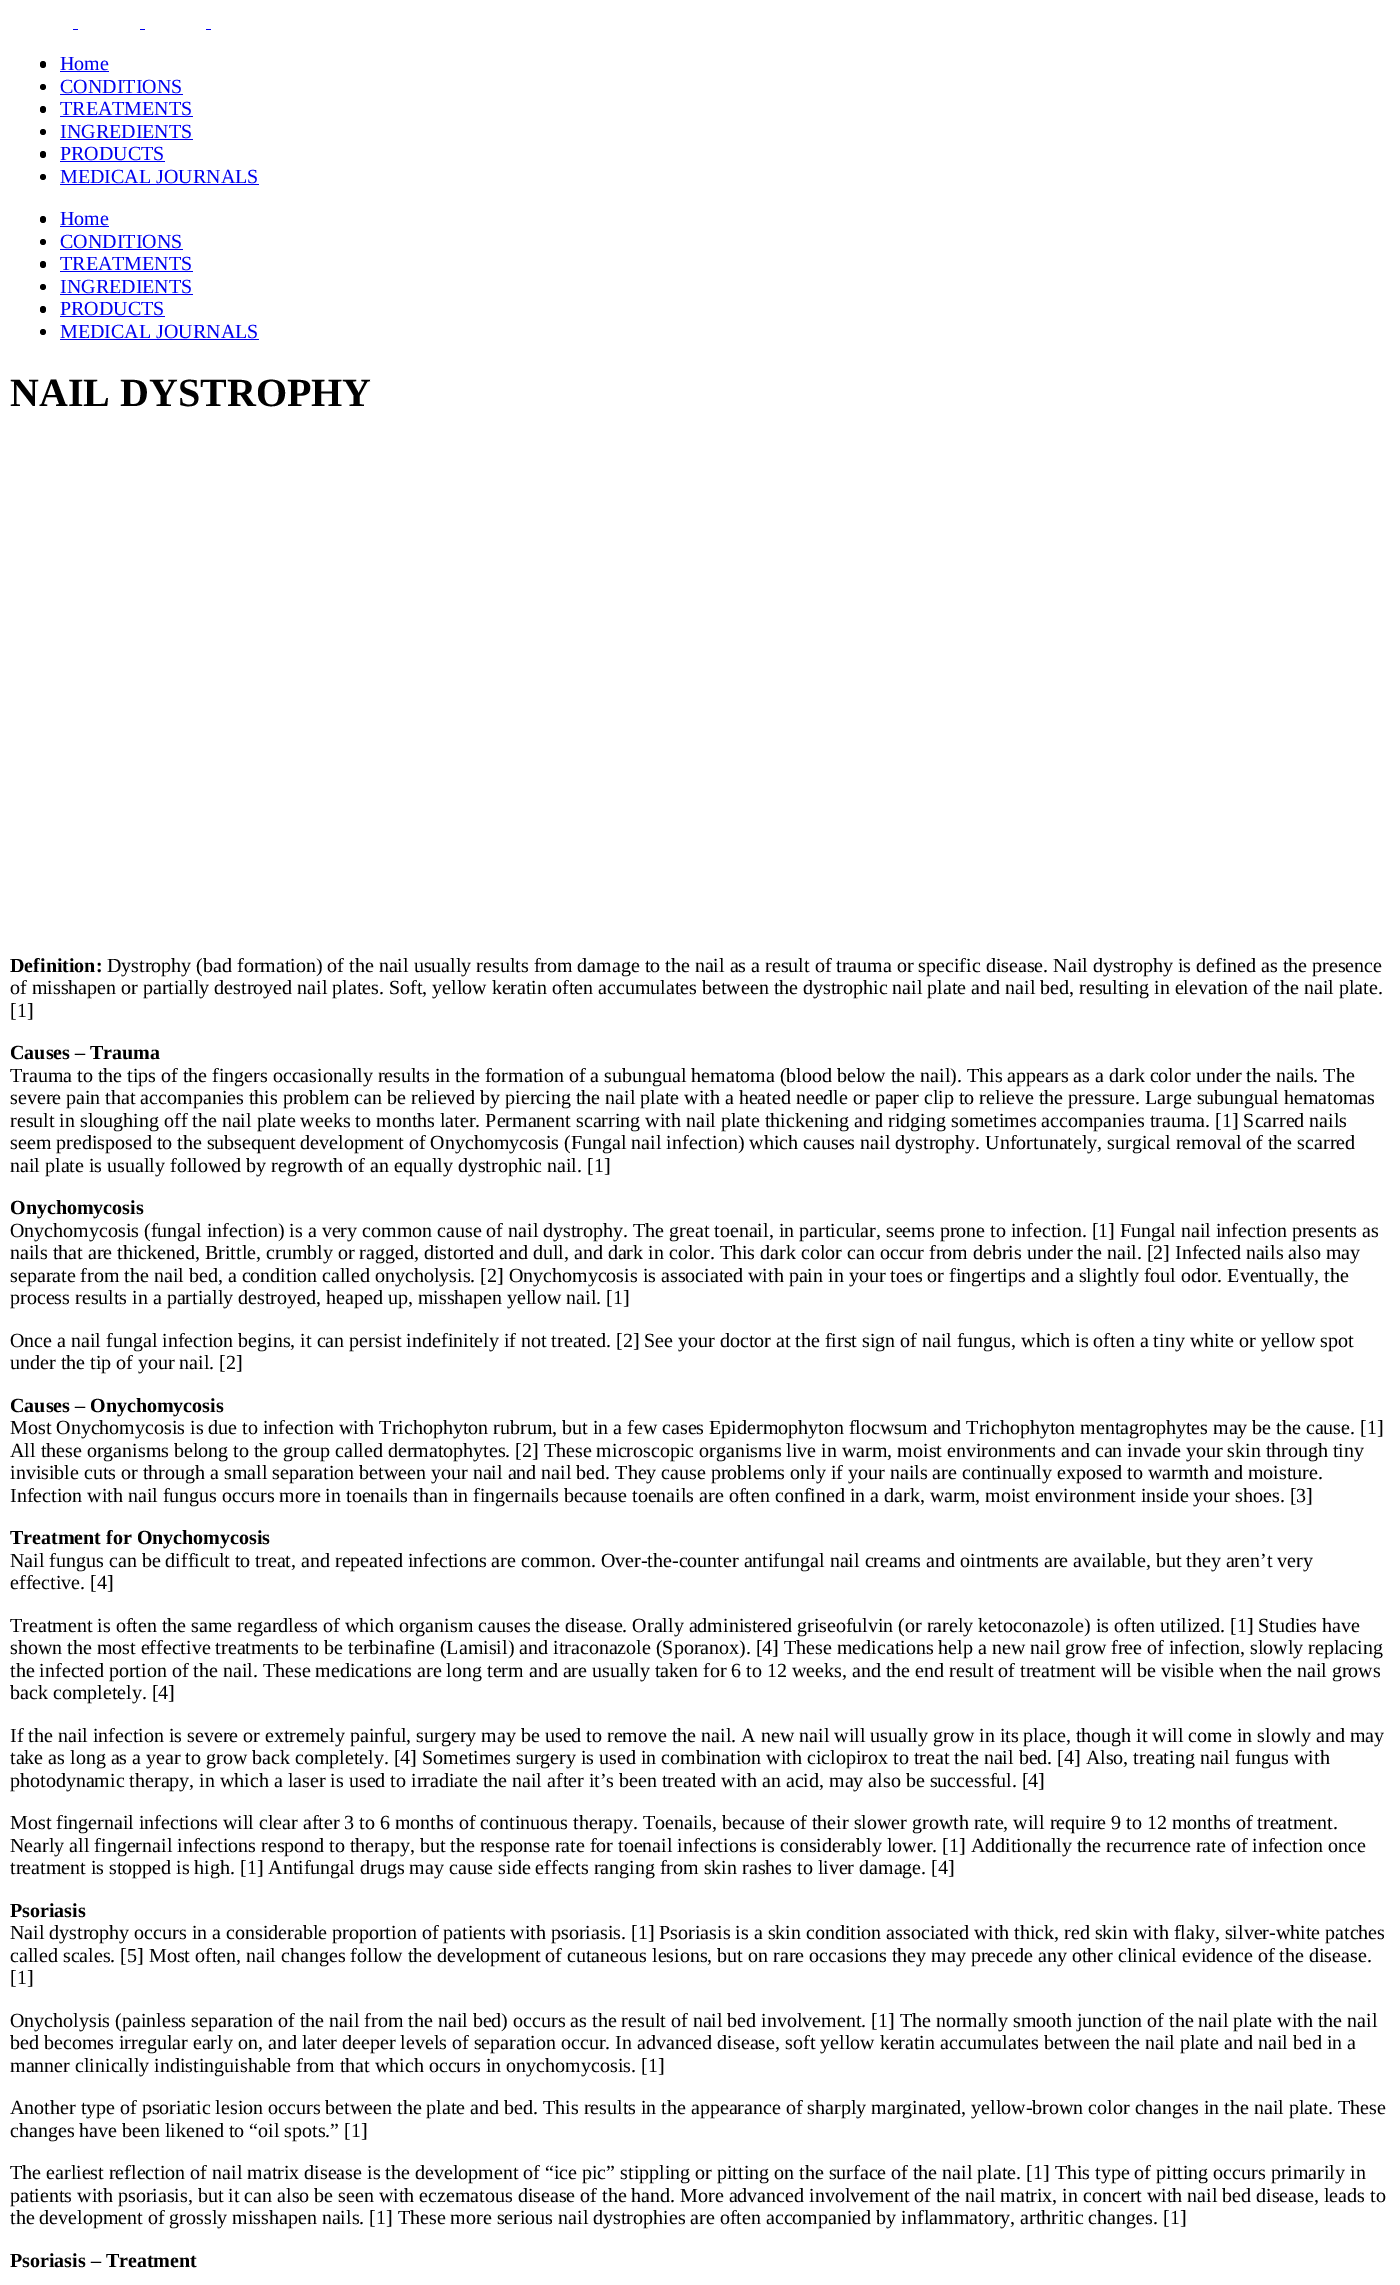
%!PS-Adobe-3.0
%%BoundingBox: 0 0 1400 2285
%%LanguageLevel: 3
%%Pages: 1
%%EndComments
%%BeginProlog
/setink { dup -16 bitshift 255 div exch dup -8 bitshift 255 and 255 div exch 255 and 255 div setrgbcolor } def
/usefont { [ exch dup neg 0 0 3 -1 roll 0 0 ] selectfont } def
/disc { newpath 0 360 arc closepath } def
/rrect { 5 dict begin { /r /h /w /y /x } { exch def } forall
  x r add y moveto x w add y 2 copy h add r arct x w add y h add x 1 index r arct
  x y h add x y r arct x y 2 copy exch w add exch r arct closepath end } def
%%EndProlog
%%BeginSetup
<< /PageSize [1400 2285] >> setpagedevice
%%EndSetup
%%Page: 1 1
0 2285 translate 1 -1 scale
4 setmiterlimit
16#FFFFFF setink
0 0 1400 2285 rectfill
[
    [73 29 5 1 16#0000EE]
    [140 29 5 1 16#0000EE]
    [206 29 5 1 16#0000EE]
] { aload pop setink rectfill } forall
16#000000 setink
40 61 6 7 3 rrect fill
/LiberationSerif-Regular 20 usefont
16#0000EE setink
60 70 moveto (Home) show
60 71 49 1 rectfill
16#000000 setink
43 87 3 disc fill
16#0000EE setink
60 93 moveto (CONDITIONS) show
60 94 123 1 rectfill
16#000000 setink
40 106 6 7 3 rrect fill
16#0000EE setink
60 115 moveto (TREATMENTS) show
60 116 133 1 rectfill
16#000000 setink
43 132 3 disc fill
16#0000EE setink
60 138 moveto (INGREDIENTS) show
60 139 133 1 rectfill
16#000000 setink
40 151 6 7 3 rrect fill
16#0000EE setink
60 160 moveto (PRODUCTS) show
60 161 105 1 rectfill
16#000000 setink
43 177 3 disc fill
16#0000EE setink
60 183 moveto (MEDICAL JOURNALS) show
60 184 199 1 rectfill
16#000000 setink
40 216 6 7 3 rrect fill
16#0000EE setink
60 225 moveto (Home) show
60 226 49 1 rectfill
16#000000 setink
43 242 3 disc fill
16#0000EE setink
60 248 moveto (CONDITIONS) show
60 249 123 1 rectfill
16#000000 setink
40 261 6 7 3 rrect fill
16#0000EE setink
60 270 moveto (TREATMENTS) show
60 271 133 1 rectfill
16#000000 setink
43 287 3 disc fill
16#0000EE setink
60 293 moveto (INGREDIENTS) show
60 294 133 1 rectfill
16#000000 setink
40 306 6 7 3 rrect fill
16#0000EE setink
60 315 moveto (PRODUCTS) show
60 316 105 1 rectfill
16#000000 setink
43 332 3 disc fill
16#0000EE setink
60 338 moveto (MEDICAL JOURNALS) show
60 339 199 1 rectfill
/LiberationSerif-Bold 40 usefont
16#000000 setink
10 406 moveto (NAIL DYSTROPHY) show
/LiberationSerif-Bold 20 usefont
10 972 moveto (Definition:) show
/LiberationSerif-Regular 20 usefont
[
    [(Dystrophy \(bad formation\) of the nail usually results from damage to the nail as a result of trauma or specific disease. Nail dystrophy is defined as the presence) 107 972]
    [(of misshapen or partially destroyed nail plates. Soft, yellow keratin often accumulates between the dystrophic nail plate and nail bed, resulting in elevation of the nail plate.) 10 994]
    [([1]) 10 1017]
] { aload pop moveto show } forall
/LiberationSerif-Bold 20 usefont
10 1059 moveto (Causes – Trauma) show
/LiberationSerif-Regular 20 usefont
[
    [(Trauma to the tips of the fingers occasionally results in the formation of a subungual hematoma \(blood below the nail\). This appears as a dark color under the nails. The) 10 1082]
    [(severe pain that accompanies this problem can be relieved by piercing the nail plate with a heated needle or paper clip to relieve the pressure. Large subungual hematomas) 10 1104]
    [(result in sloughing off the nail plate weeks to months later. Permanent scarring with nail plate thickening and ridging sometimes accompanies trauma. [1] Scarred nails) 10 1127]
    [(seem predisposed to the subsequent development of Onychomycosis \(Fungal nail infection\) which causes nail dystrophy. Unfortunately, surgical removal of the scarred) 10 1149]
    [(nail plate is usually followed by regrowth of an equally dystrophic nail. [1]) 10 1172]
] { aload pop moveto show } forall
/LiberationSerif-Bold 20 usefont
10 1214 moveto (Onychomycosis) show
/LiberationSerif-Regular 20 usefont
[
    [(Onychomycosis \(fungal infection\) is a very common cause of nail dystrophy. The great toenail, in particular, seems prone to infection. [1] Fungal nail infection presents as) 10 1237]
    [(nails that are thickened, Brittle, crumbly or ragged, distorted and dull, and dark in color. This dark color can occur from debris under the nail. [2] Infected nails also may) 10 1259]
    [(separate from the nail bed, a condition called onycholysis. [2] Onychomycosis is associated with pain in your toes or fingertips and a slightly foul odor. Eventually, the) 10 1282]
    [(process results in a partially destroyed, heaped up, misshapen yellow nail. [1]) 10 1304]
    [(Once a nail fungal infection begins, it can persist indefinitely if not treated. [2] See your doctor at the first sign of nail fungus, which is often a tiny white or yellow spot) 10 1347]
    [(under the tip of your nail. [2]) 10 1369]
] { aload pop moveto show } forall
/LiberationSerif-Bold 20 usefont
10 1412 moveto (Causes – Onychomycosis) show
/LiberationSerif-Regular 20 usefont
[
    [(Most Onychomycosis is due to infection with Trichophyton rubrum, but in a few cases Epidermophyton flocwsum and Trichophyton mentagrophytes may be the cause. [1]) 10 1434]
    [(All these organisms belong to the group called dermatophytes. [2] These microscopic organisms live in warm, moist environments and can invade your skin through tiny) 10 1457]
    [(invisible cuts or through a small separation between your nail and nail bed. They cause problems only if your nails are continually exposed to warmth and moisture.) 10 1479]
    [(Infection with nail fungus occurs more in toenails than in fingernails because toenails are often confined in a dark, warm, moist environment inside your shoes. [3]) 10 1502]
] { aload pop moveto show } forall
/LiberationSerif-Bold 20 usefont
10 1544 moveto (Treatment for Onychomycosis) show
/LiberationSerif-Regular 20 usefont
[
    [(Nail fungus can be difficult to treat, and repeated infections are common. Over-the-counter antifungal nail creams and ointments are available, but they aren’t very) 10 1567]
    [(effective. [4]) 10 1589]
    [(Treatment is often the same regardless of which organism causes the disease. Orally administered griseofulvin \(or rarely ketoconazole\) is often utilized. [1] Studies have) 10 1632]
    [(shown the most effective treatments to be terbinafine \(Lamisil\) and itraconazole \(Sporanox\). [4] These medications help a new nail grow free of infection, slowly replacing) 10 1654]
    [(the infected portion of the nail. These medications are long term and are usually taken for 6 to 12 weeks, and the end result of treatment will be visible when the nail grows) 10 1677]
    [(back completely. [4]) 10 1699]
    [(If the nail infection is severe or extremely painful, surgery may be used to remove the nail. A new nail will usually grow in its place, though it will come in slowly and may) 10 1742]
    [(take as long as a year to grow back completely. [4] Sometimes surgery is used in combination with ciclopirox to treat the nail bed. [4] Also, treating nail fungus with) 10 1764]
    [(photodynamic therapy, in which a laser is used to irradiate the nail after it’s been treated with an acid, may also be successful. [4]) 10 1787]
    [(Most fingernail infections will clear after 3 to 6 months of continuous therapy. Toenails, because of their slower growth rate, will require 9 to 12 months of treatment.) 10 1829]
    [(Nearly all fingernail infections respond to therapy, but the response rate for toenail infections is considerably lower. [1] Additionally the recurrence rate of infection once) 10 1852]
    [(treatment is stopped is high. [1] Antifungal drugs may cause side effects ranging from skin rashes to liver damage. [4]) 10 1874]
] { aload pop moveto show } forall
/LiberationSerif-Bold 20 usefont
10 1917 moveto (Psoriasis) show
/LiberationSerif-Regular 20 usefont
[
    [(Nail dystrophy occurs in a considerable proportion of patients with psoriasis. [1] Psoriasis is a skin condition associated with thick, red skin with flaky, silver-white patches) 10 1939]
    [(called scales. [5] Most often, nail changes follow the development of cutaneous lesions, but on rare occasions they may precede any other clinical evidence of the disease.) 10 1962]
    [([1]) 10 1984]
    [(Onycholysis \(painless separation of the nail from the nail bed\) occurs as the result of nail bed involvement. [1] The normally smooth junction of the nail plate with the nail) 10 2027]
    [(bed becomes irregular early on, and later deeper levels of separation occur. In advanced disease, soft yellow keratin accumulates between the nail plate and nail bed in a) 10 2049]
    [(manner clinically indistinguishable from that which occurs in onychomycosis. [1]) 10 2072]
    [(Another type of psoriatic lesion occurs between the plate and bed. This results in the appearance of sharply marginated, yellow-brown color changes in the nail plate. These) 10 2114]
    [(changes have been likened to “oil spots.” [1]) 10 2137]
    [(The earliest reflection of nail matrix disease is the development of “ice pic” stippling or pitting on the surface of the nail plate. [1] This type of pitting occurs primarily in) 10 2179]
    [(patients with psoriasis, but it can also be seen with eczematous disease of the hand. More advanced involvement of the nail matrix, in concert with nail bed disease, leads to) 10 2202]
    [(the development of grossly misshapen nails. [1] These more serious nail dystrophies are often accompanied by inflammatory, arthritic changes. [1]) 10 2224]
] { aload pop moveto show } forall
/LiberationSerif-Bold 20 usefont
10 2267 moveto (Psoriasis – Treatment) show
showpage
%%EOF
